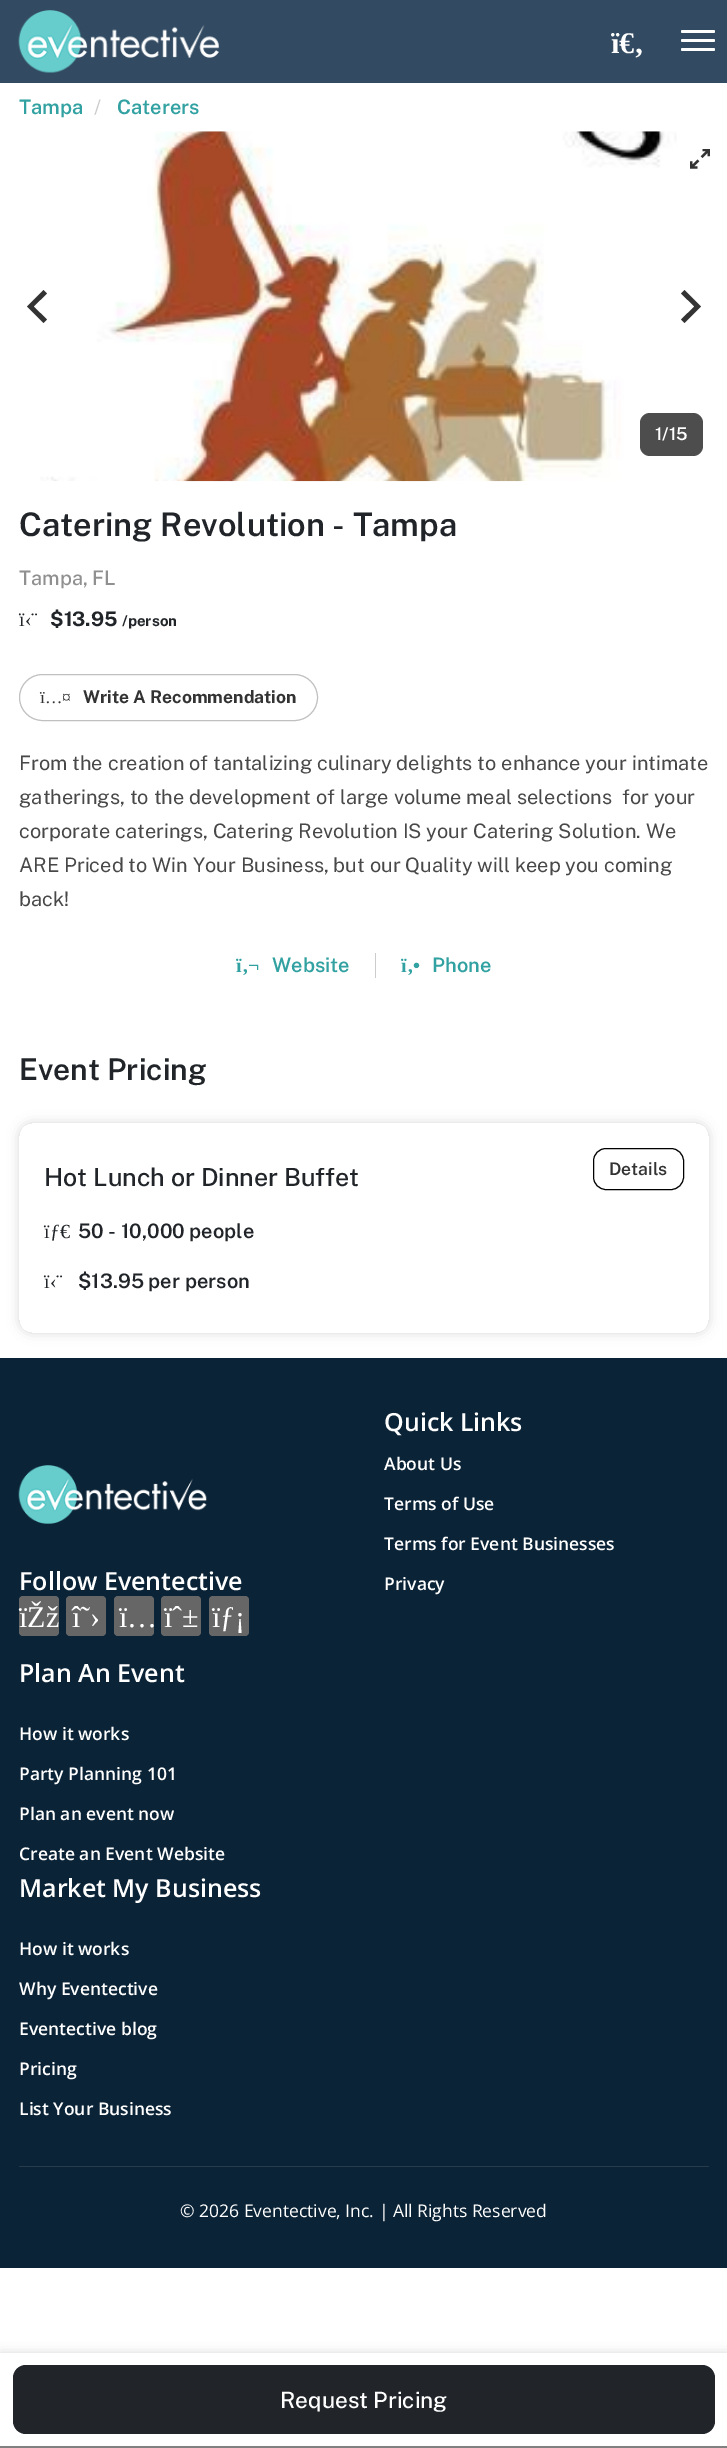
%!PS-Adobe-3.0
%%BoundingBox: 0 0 727 2448
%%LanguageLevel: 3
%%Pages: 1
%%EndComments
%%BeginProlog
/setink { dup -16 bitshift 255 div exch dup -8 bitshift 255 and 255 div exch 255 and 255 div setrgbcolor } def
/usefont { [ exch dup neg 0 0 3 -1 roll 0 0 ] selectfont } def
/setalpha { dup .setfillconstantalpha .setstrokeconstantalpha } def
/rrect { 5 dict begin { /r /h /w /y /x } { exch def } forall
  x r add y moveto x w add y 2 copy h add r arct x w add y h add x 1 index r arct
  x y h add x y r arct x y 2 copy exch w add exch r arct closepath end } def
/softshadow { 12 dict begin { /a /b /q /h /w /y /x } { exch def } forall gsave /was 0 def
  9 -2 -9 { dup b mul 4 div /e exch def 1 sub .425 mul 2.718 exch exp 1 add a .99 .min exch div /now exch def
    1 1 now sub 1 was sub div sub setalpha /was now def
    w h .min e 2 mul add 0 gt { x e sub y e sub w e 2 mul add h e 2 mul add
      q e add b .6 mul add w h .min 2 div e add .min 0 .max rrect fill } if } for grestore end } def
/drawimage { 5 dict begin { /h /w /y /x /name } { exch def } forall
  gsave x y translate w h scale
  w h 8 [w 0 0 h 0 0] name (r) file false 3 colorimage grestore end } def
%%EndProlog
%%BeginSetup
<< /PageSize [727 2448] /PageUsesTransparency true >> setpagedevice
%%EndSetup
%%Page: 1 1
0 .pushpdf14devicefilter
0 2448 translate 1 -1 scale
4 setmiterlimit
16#FFFFFF setink
0 0 727 2448 rectfill
16#334B62 setink
0 0 727 83 rectfill
(img1.raw) 18 10 201 63 drawimage
16#FFFFFF setink
681 30 34 3 1.5 rrect fill
681 39 34 3 1.5 rrect fill
681 48 34 3 1.5 rrect fill
/LiberationSerif-Bold 30 usefont
611 53 moveto (ï€‚) show
/PublicSans-SemiBold 20 usefont
16#31A1A1 setink
19 114 moveto (Tampa) show
/PublicSans-Regular 20 usefont
16#CCCCCC setink
94 114 moveto (/) show
/PublicSans-SemiBold 20 usefont
16#31A1A1 setink
117 114 moveto (Caterers) show
(img2.raw) 40 131 637 351 drawimage
(img3.raw) 690 149 20 20 drawimage
16#333333 setink
27 306.5 moveto 43.5 323 lineto 47 319.5 lineto 33.5 306.5 lineto 47 293.5 lineto 43.5 290 lineto closepath fill
701 306.5 moveto 684.5 290 lineto 681 293.5 lineto 694.5 306.5 lineto 681 319.5 lineto 684.5 323 lineto closepath fill
16#4D4D4D setink
640 413 63 43 10 rrect fill
/PublicSans-SemiBold 17.5 usefont
16#FFFFFF setink
655 440 moveto (1/15) show
/PublicSans-SemiBold 32.5 usefont
16#212529 setink
19 536 moveto (Catering Revolution - Tampa) show
/PublicSans-Medium 20 usefont
16#909090 setink
19 585 moveto (Tampa, FL) show
/LiberationSerif-Regular 20 usefont
16#212529 setink
19 626 moveto (ï‹¨) show
/PublicSans-Bold 20 usefont
50 626 moveto ($13.95) show
/PublicSans-Bold 15 usefont
122 626 moveto (/person) show
16#C0C0C0 setink
19.5 674.5 298 46 23 rrect stroke
/LiberationSerif-Regular 17.5 usefont
16#333333 setink
40 703 moveto (ï…¤) show
/PublicSans-Bold 17.5 usefont
83 703 moveto (Write A Recommendation) show
/PublicSans-Regular 20 usefont
16#484848 setink
[
    [(From the creation of tantalizing culinary delights to enhance your intimate) 19 770]
    [(gatherings, to the development of large volume meal selections  for your) 19 804]
    [(corporate caterings, Catering Revolution IS your Catering Solution. We) 19 838]
    [(ARE Priced to Win Your Business, but our Quality will keep you coming) 19 872]
    [(back!) 19 906]
] { aload pop moveto show } forall
/LiberationSerif-Bold 20 usefont
16#31A1A1 setink
236 972 moveto (ï‚¬) show
/PublicSans-SemiBold 20 usefont
272 972 moveto (Website) show
16#CCCCCC setink
375 953 1 25 rectfill
/LiberationSerif-Bold 20 usefont
16#31A1A1 setink
401 972 moveto (ï‚•) show
/PublicSans-SemiBold 20 usefont
432 972 moveto (Phone) show
/PublicSans-SemiBold 30 usefont
16#212529 setink
19 1080 moveto (Event Pricing) show
gsave
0 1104 moveto 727 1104 lineto 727 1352 lineto 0 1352 lineto closepath 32 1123 moveto 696 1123 lineto 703 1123 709 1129 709 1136 curveto 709 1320 lineto 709 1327 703 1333 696 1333 curveto 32 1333 lineto 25 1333 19 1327 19 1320 curveto 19 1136 lineto 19 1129 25 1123 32 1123 curveto closepath eoclip newpath
16#D8D8D8 setink
19 1123 690 210 13 6 1 softshadow
grestore
/PublicSans-Medium 25 usefont
44 1186 moveto (Hot Lunch or Dinner Buffet) show
16#000000 setink
593.5 1148.5 90 41 12.5 rrect stroke
/PublicSans-SemiBold 17.5 usefont
16#333333 setink
609 1175 moveto (Details) show
/LiberationSerif-Regular 20 usefont
16#212529 setink
44 1238 moveto (ïƒ€) show
/PublicSans-SemiBold 20 usefont
78 1238 moveto (50 - 10,000 people) show
/LiberationSerif-Regular 20 usefont
44 1288 moveto (ï‹¨) show
/PublicSans-SemiBold 20 usefont
78 1288 moveto ($13.95 per person) show
16#0B2336 setink
0 1358 727 910 rectfill
/OpenSans-SemiBold 25 usefont
16#FFFFFF setink
384 1431 moveto (Quick Links) show
/OpenSans-SemiBold 17.5 usefont
[
    [(About Us) 384 1470]
    [(Terms of Use) 384 1510]
    [(Terms for Event Businesses) 384 1550]
    [(Privacy) 384 1590]
] { aload pop moveto show } forall
(img4.raw) 18 1465 189 59 drawimage
/OpenSans-SemiBold 25 usefont
19 1590 moveto (Follow Eventective) show
16#666666 setink
19 1596 40 40 4 rrect fill
/LiberationSerif-Regular 30 usefont
16#FFFFFF setink
19 1627 moveto (ïŽž) show
16#666666 setink
66 1596 40 40 4 rrect fill
16#FFFFFF setink
72 1627 moveto (î˜›) show
16#666666 setink
114 1596 40 40 4 rrect fill
16#FFFFFF setink
119 1627 moveto (ï…) show
16#666666 setink
161 1596 40 40 4 rrect fill
16#FFFFFF setink
164 1627 moveto (ïˆ±) show
16#666666 setink
209 1596 40 40 4 rrect fill
16#FFFFFF setink
212 1627 moveto (ïƒ¡) show
/OpenSans-SemiBold 25 usefont
19 1682 moveto (Plan An Event) show
/OpenSans-SemiBold 17.5 usefont
[
    [(How it works) 19 1740]
    [(Party Planning 101) 19 1780]
    [(Plan an event now) 19 1820]
    [(Create an Event Website) 19 1860]
] { aload pop moveto show } forall
/OpenSans-SemiBold 25 usefont
19 1897 moveto (Market My Business) show
/OpenSans-SemiBold 17.5 usefont
[
    [(How it works) 19 1955]
    [(Why Eventective) 19 1995]
    [(Eventective blog) 19 2035]
    [(Pricing) 19 2075]
    [(List Your Business) 19 2115]
] { aload pop moveto show } forall
16#273B4A setink
19 2166 690 1 rectfill
/OpenSans-Regular 17.5 usefont
16#FFFFFF setink
180 2217 moveto (© 2026 Eventective, Inc. | All Rights Reserved) show
gsave
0 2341 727 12 rectclip
16#D8D8D8 setink
0 2353 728 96 0 6 1 softshadow
grestore
16#808080 setink
0 2446 727 2 rectfill
16#212529 setink
13 2365 702 69 13 rrect fill
/PublicSans-Medium 22.5 usefont
16#FFFFFF setink
280 2408 moveto (Request Pricing) show
.poppdf14devicefilter showpage
%%EOF
